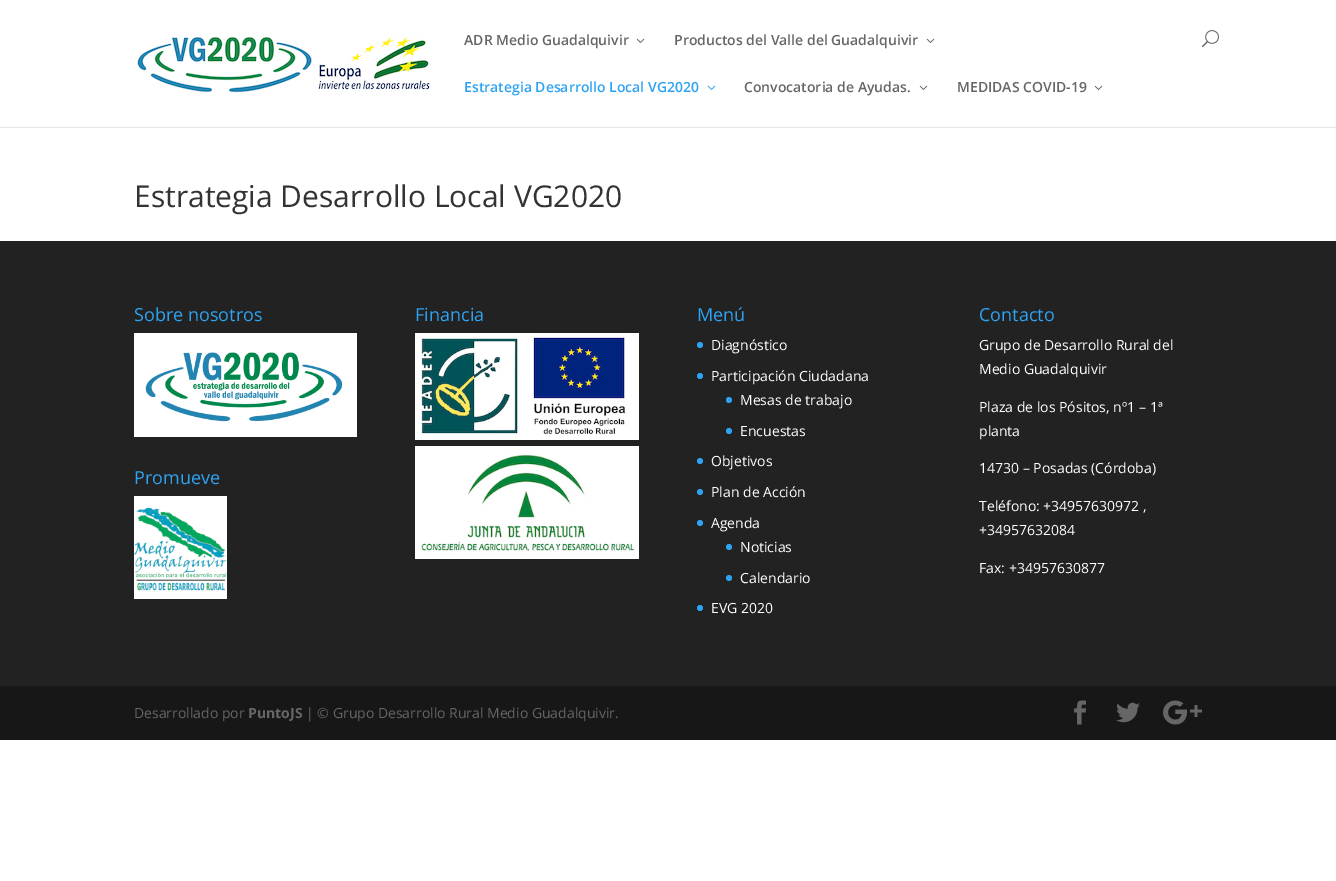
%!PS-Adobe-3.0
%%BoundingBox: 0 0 1336 881
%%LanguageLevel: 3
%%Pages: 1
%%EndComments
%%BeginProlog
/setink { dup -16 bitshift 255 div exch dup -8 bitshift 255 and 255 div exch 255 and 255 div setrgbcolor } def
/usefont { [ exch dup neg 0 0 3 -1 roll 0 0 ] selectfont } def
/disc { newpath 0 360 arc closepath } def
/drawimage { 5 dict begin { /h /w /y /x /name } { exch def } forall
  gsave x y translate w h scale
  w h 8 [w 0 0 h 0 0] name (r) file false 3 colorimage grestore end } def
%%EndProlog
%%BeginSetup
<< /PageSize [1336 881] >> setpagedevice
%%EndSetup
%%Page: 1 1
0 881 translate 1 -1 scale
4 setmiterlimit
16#FFFFFF setink
0 0 1336 881 rectfill
16#E6E6E6 setink
0 127 1336 1 rectfill
(img1.raw) 137 33 295 61 drawimage
/OpenSans-SemiBold 14 usefont
16#666666 setink
464 45 moveto (ADR Medio Guadalquivir) show
(img2.raw) 636 38 9 5 drawimage
674 45 moveto (Productos del Valle del Guadalquivir) show
(img2.raw) 926 38 9 5 drawimage
16#2EA3F2 setink
464 92 moveto (Estrategia Desarrollo Local VG2020) show
(img3.raw) 707 85 9 5 drawimage
16#666666 setink
744 92 moveto (Convocatoria de Ayudas.) show
(img2.raw) 919 85 9 5 drawimage
957 92 moveto (MEDIDAS COVID-19) show
(img2.raw) 1094 85 9 5 drawimage
(img4.raw) 1202 30 17 18 drawimage
/OpenSans-Regular 30 usefont
16#333333 setink
134 207 moveto (Estrategia Desarrollo Local VG2020) show
16#222222 setink
0 241 1336 445 rectfill
/OpenSans-Regular 18 usefont
16#2EA3F2 setink
134 321 moveto (Sobre nosotros) show
(img5.raw) 134 333 223 104 drawimage
134 484 moveto (Promueve) show
(img6.raw) 134 496 93 103 drawimage
415 321 moveto (Financia) show
(img7.raw) 415 333 224 107 drawimage
(img8.raw) 415 446 224 113 drawimage
697 321 moveto (Menú) show
700 345 3 disc fill
/OpenSans-Regular 14 usefont
16#FFFFFF setink
711 350 moveto (Diagnóstico) show
16#2EA3F2 setink
700 376 3 disc fill
16#FFFFFF setink
711 381 moveto (Participación Ciudadana) show
16#2EA3F2 setink
729 400 3 disc fill
16#FFFFFF setink
740 405 moveto (Mesas de trabajo) show
16#2EA3F2 setink
729 431 3 disc fill
16#FFFFFF setink
740 436 moveto (Encuestas) show
16#2EA3F2 setink
700 461 3 disc fill
16#FFFFFF setink
711 466 moveto (Objetivos) show
16#2EA3F2 setink
700 492 3 disc fill
16#FFFFFF setink
711 497 moveto (Plan de Acción) show
16#2EA3F2 setink
700 523 3 disc fill
16#FFFFFF setink
711 528 moveto (Agenda) show
16#2EA3F2 setink
729 547 3 disc fill
16#FFFFFF setink
740 552 moveto (Noticias) show
16#2EA3F2 setink
729 578 3 disc fill
16#FFFFFF setink
740 583 moveto (Calendario) show
16#2EA3F2 setink
700 608 3 disc fill
16#FFFFFF setink
711 613 moveto (EVG 2020) show
/OpenSans-Regular 18 usefont
16#2EA3F2 setink
979 321 moveto (Contacto) show
/OpenSans-Regular 14 usefont
16#FFFFFF setink
[
    [(Grupo de Desarrollo Rural del) 979 350]
    [(Medio Guadalquivir) 979 374]
    [(Plaza de los Pósitos, nº1 – 1ª) 979 412]
    [(planta) 979 436]
    [(14730 – Posadas \(Córdoba\)) 979 473]
    [(Teléfono: +34957630972 ,) 979 511]
    [(+34957632084) 979 535]
    [(Fax: +34957630877) 979 573]
] { aload pop moveto show } forall
16#171717 setink
0 686 1336 54 rectfill
16#666666 setink
134 718 moveto (Desarrollado por) show
/OpenSans-Bold 14 usefont
248 718 moveto (PuntoJS) show
/OpenSans-Regular 14 usefont
306 718 moveto (| © Grupo Desarrollo Rural Medio Guadalquivir.) show
(img9.raw) 1074 700 12 25 drawimage
(img10.raw) 1116 702 24 21 drawimage
(img11.raw) 1163 700 39 25 drawimage
showpage
%%EOF
